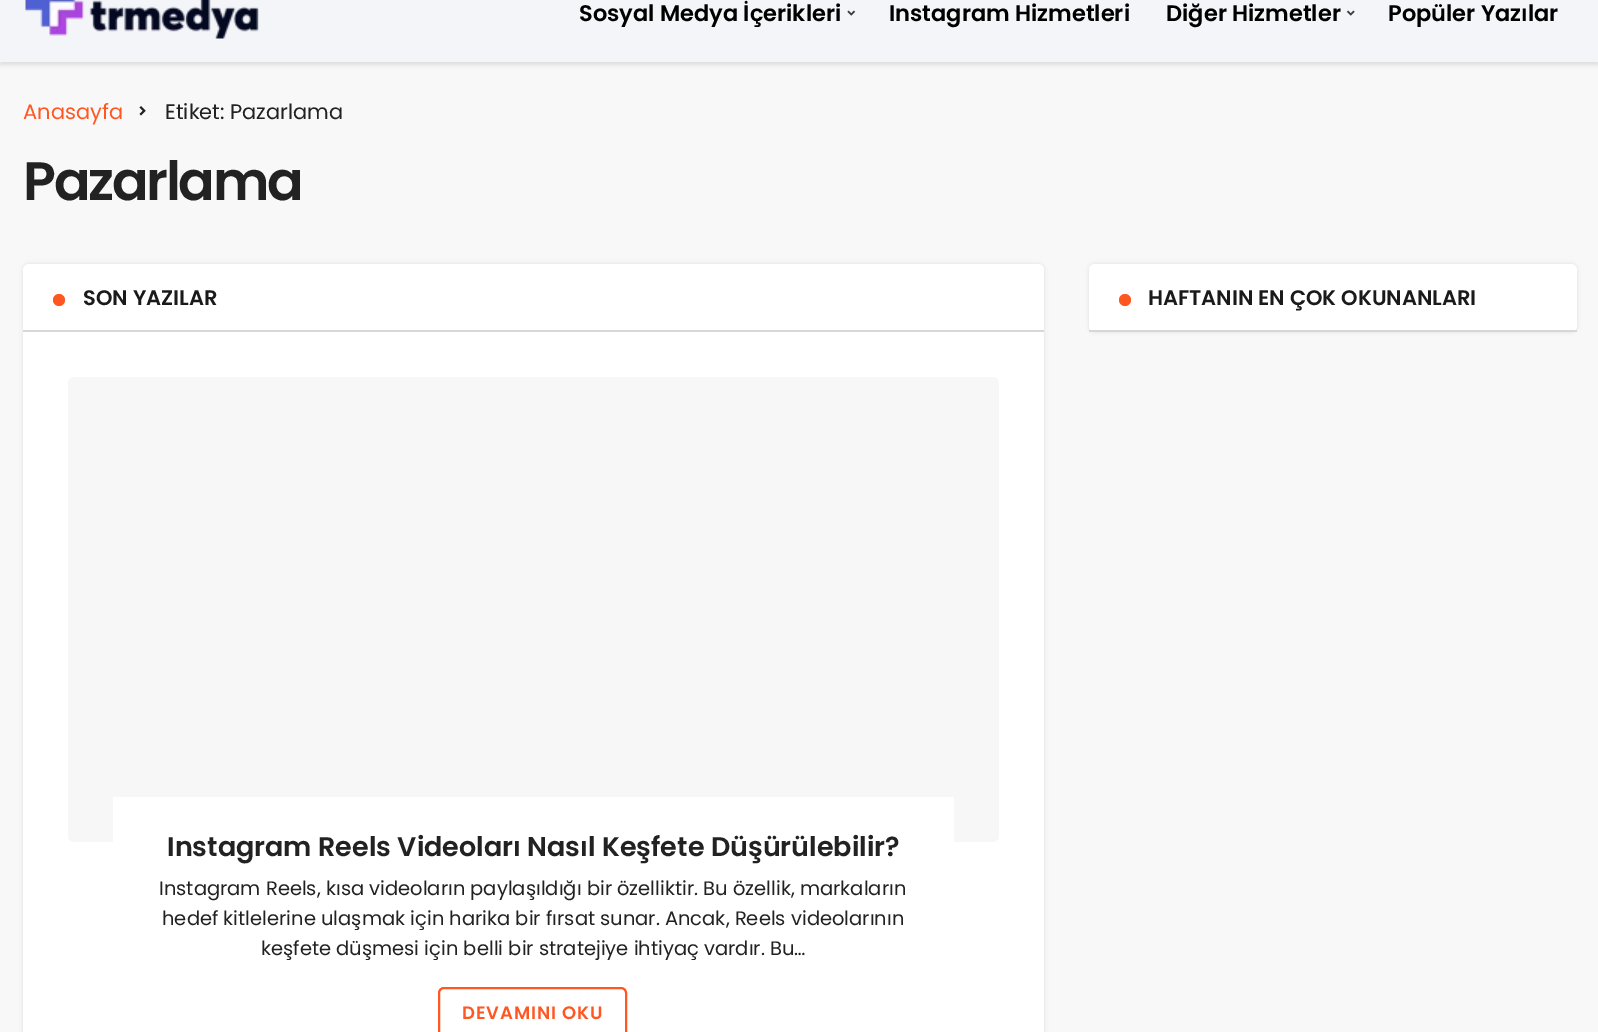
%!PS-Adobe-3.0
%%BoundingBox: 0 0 1598 1032
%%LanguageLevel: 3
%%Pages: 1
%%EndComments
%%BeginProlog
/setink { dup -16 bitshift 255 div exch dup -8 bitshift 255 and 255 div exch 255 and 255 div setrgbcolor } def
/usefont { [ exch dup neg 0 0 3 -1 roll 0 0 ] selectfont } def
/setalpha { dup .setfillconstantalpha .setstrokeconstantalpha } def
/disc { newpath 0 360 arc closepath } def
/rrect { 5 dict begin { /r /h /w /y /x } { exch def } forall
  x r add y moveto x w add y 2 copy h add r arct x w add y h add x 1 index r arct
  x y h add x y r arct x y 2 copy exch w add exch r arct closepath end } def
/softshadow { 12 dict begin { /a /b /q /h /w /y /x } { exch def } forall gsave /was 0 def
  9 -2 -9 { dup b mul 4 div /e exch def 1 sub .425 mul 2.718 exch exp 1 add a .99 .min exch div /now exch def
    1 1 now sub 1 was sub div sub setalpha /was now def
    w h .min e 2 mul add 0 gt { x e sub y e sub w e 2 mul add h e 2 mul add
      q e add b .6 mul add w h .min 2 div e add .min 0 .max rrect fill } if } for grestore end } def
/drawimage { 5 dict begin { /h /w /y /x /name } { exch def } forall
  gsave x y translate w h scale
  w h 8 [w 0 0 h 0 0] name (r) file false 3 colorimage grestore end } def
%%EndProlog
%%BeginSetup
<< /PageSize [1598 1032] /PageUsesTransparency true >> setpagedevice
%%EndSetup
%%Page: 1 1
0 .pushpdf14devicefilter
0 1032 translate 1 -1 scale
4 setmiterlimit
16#F8F8F8 setink
0 0 1598 1032 rectfill
16#000000 setink
0 -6 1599 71 0 2 0.1 softshadow
16#F4F5F9 setink
0 0 1598 62 rectfill
(img1.raw) 25 0 234 39 drawimage
/Poppins-SemiBold 22.5 usefont
16#000000 setink
579 21 moveto (Sosyal Medya İçerikleri) show
(img2.raw) 847 10 9 6 drawimage
889 21 moveto (Instagram Hizmetleri) show
1166 21 moveto (Diğer Hizmetler) show
(img3.raw) 1346 10 9 6 drawimage
1388 21 moveto (Popüler Yazılar) show
/Poppins-Regular 21 usefont
16#FF5722 setink
23 119 moveto (Anasayfa) show
(img4.raw) 139 106 7 10 drawimage
16#222222 setink
165 119 moveto (Etiket: Pazarlama) show
/Poppins-SemiBold 54 usefont
23 200 moveto -2.25 0 (Pazarlama) ashow
16#000000 setink
23 264 1021 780 6 2 0.1 softshadow
16#FFFFFF setink
23 264 1021 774 6 rrect fill
16#D5D7DA setink
23 330 1021 2 rectfill
16#FF5722 setink
59 300 6 disc fill
/Poppins-SemiBold 21 usefont
16#1A1A1A setink
83 305 moveto (SON YAZILAR) show
16#F7F7F7 setink
68 377 931 465 6 rrect fill
16#FFFFFF setink
113 797 841 45 rectfill
/Poppins-SemiBold 27 usefont
16#222222 setink
167 856 moveto (Instagram Reels Videoları Nasıl Keşfete Düşürülebilir?) show
/Poppins-Regular 19.5 usefont
[
    [(Instagram Reels, kısa videoların paylaşıldığı bir özelliktir. Bu özellik, markaların) 159 895]
    [(hedef kitlelerine ulaşmak için harika bir fırsat sunar. Ancak, Reels videolarının) 162 925]
    [(keşfete düşmesi için belli bir stratejiye ihtiyaç vardır. Bu…) 261 955]
] { aload pop moveto show } forall
16#FF5722 setink
2 setlinewidth
439 988 187 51 5 rrect stroke
/Poppins-SemiBold 18 usefont
462 1019 moveto 0.9 0 (DEVAMINI OKU) ashow
16#000000 setink
1089 264 488 68 6 2 0.1 softshadow
16#FFFFFF setink
1089 264 488 68 6 rrect fill
16#D5D7DA setink
1089 330 488 2 rectfill
16#FF5722 setink
1125 300 6 disc fill
/Poppins-SemiBold 21 usefont
16#1A1A1A setink
1148 305 moveto (HAFTANIN EN ÇOK OKUNANLARI) show
.poppdf14devicefilter showpage
%%EOF
